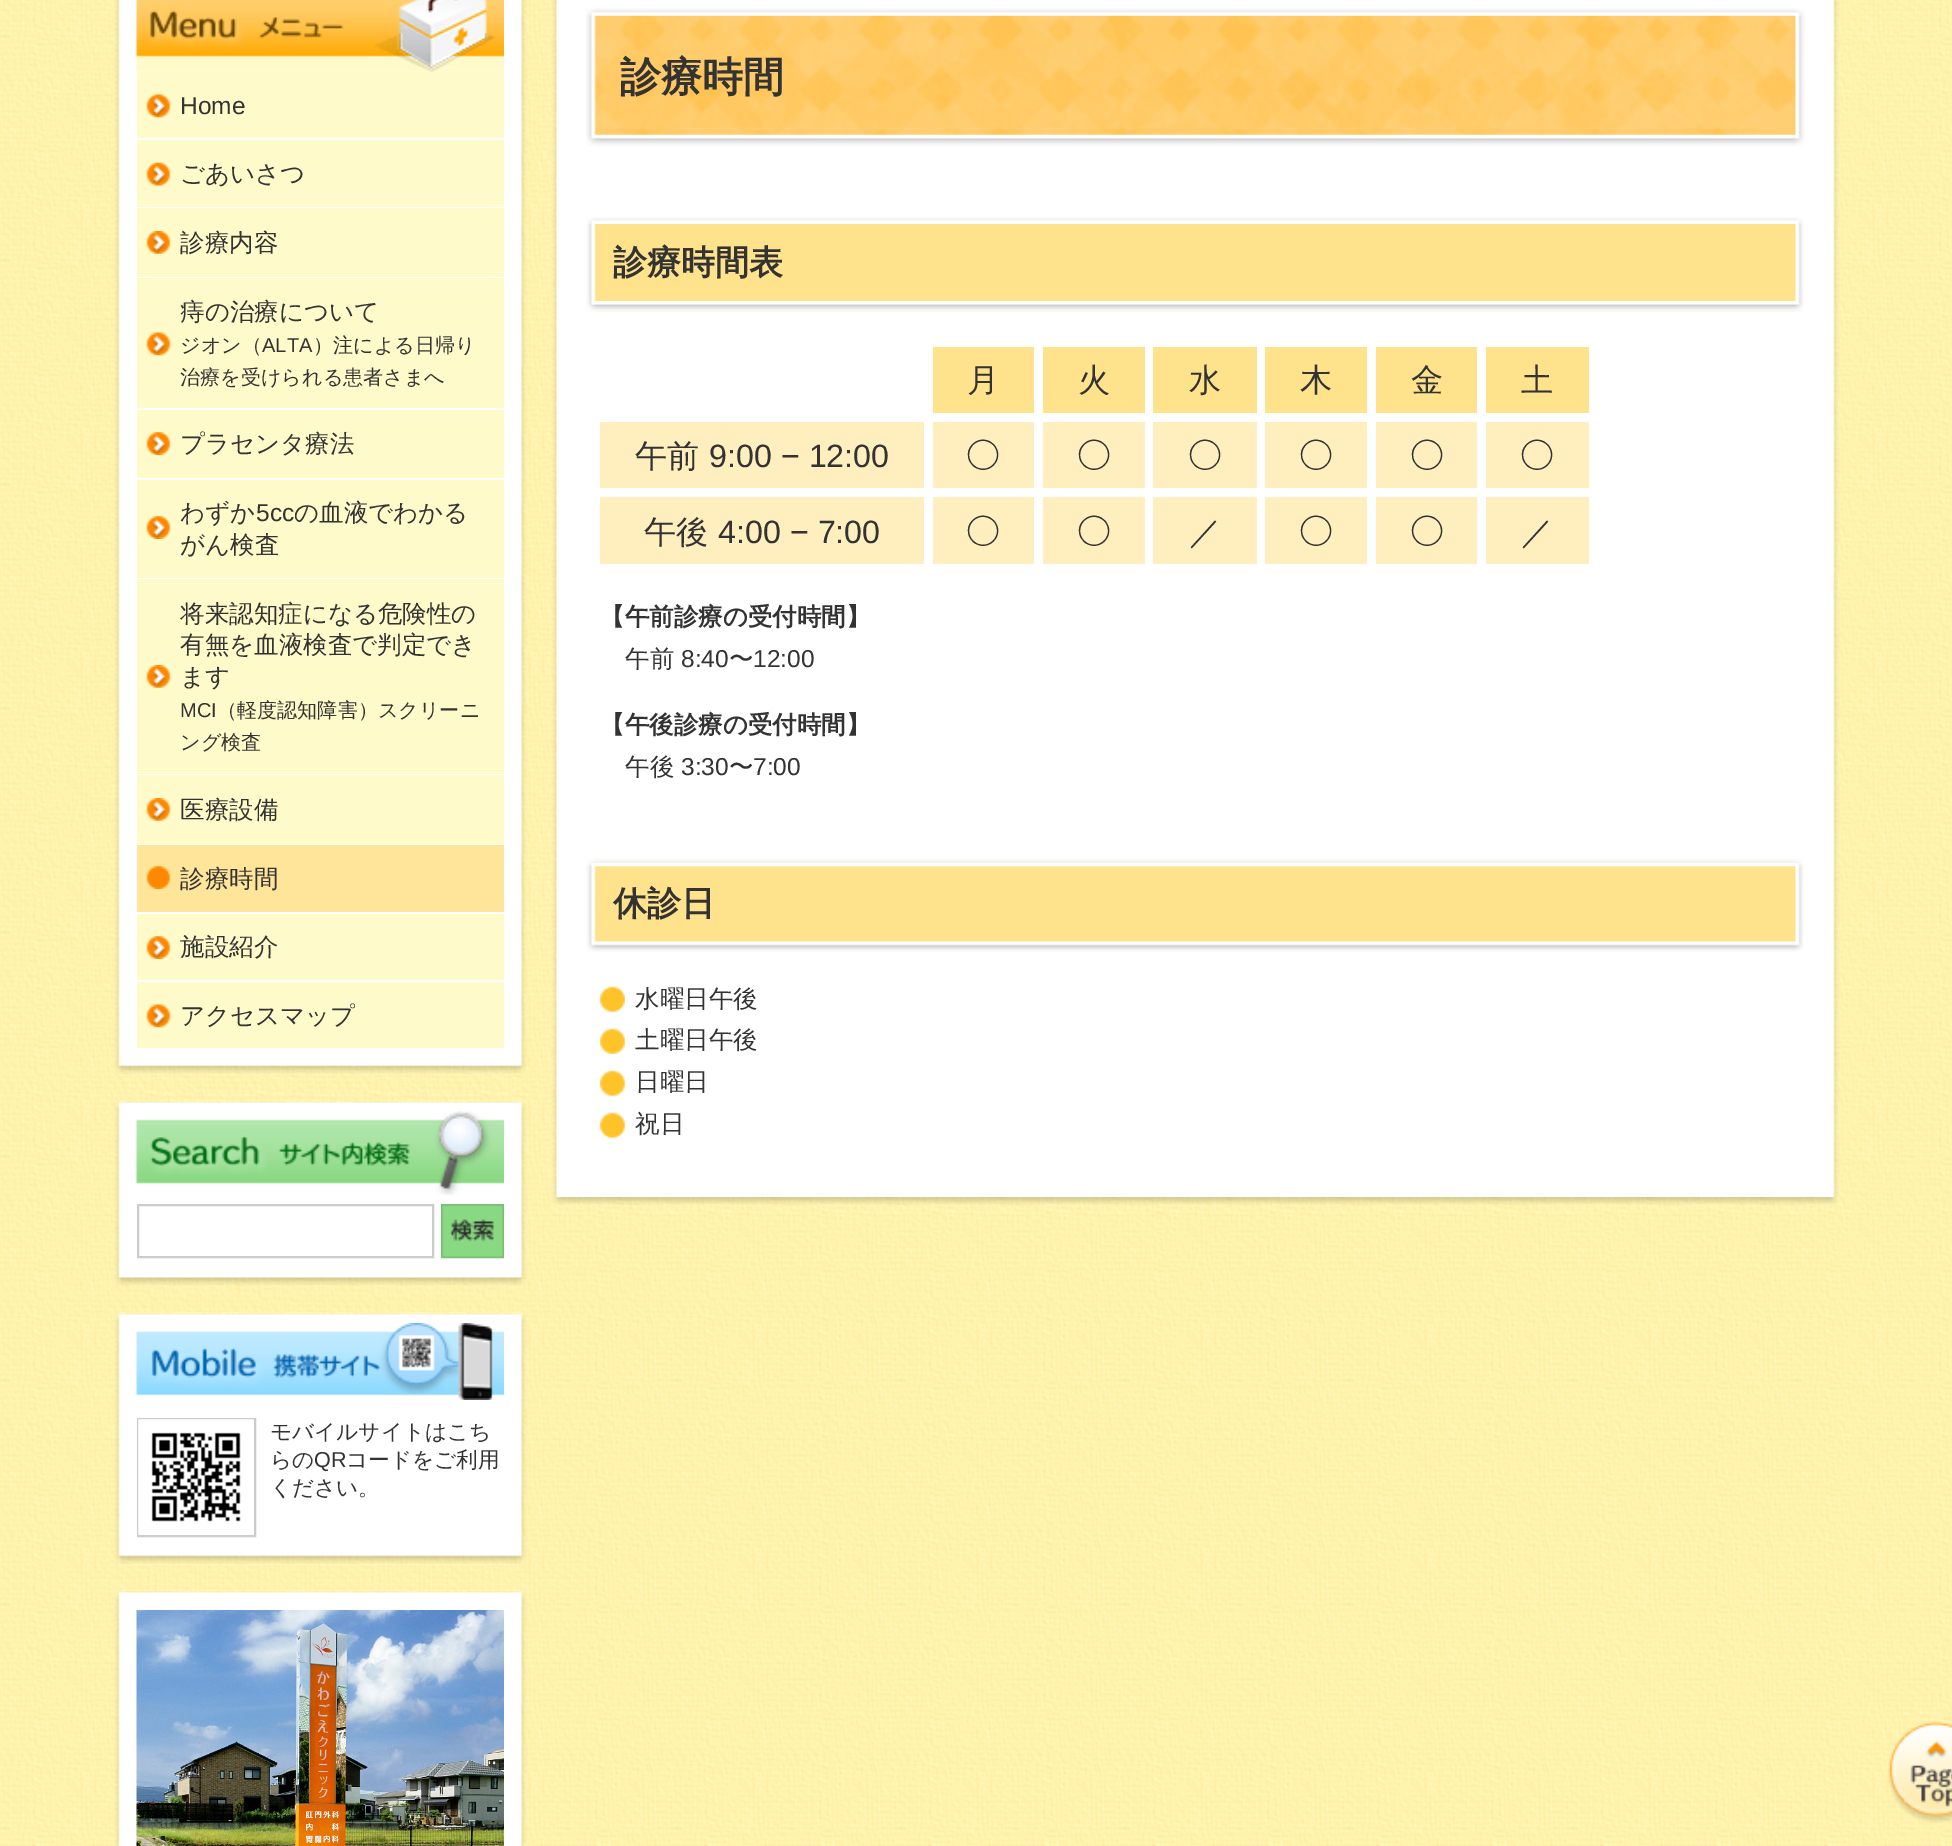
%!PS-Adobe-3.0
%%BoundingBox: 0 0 1952 1846
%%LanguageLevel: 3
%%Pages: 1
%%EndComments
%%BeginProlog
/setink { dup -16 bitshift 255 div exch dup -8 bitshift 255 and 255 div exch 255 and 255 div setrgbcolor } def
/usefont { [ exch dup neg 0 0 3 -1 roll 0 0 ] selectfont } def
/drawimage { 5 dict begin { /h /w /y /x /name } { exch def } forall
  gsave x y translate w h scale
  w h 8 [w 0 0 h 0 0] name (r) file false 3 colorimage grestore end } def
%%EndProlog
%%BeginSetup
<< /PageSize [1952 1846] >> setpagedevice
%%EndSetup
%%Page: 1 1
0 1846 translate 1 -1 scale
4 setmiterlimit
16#FFFFFF setink
0 0 1952 1846 rectfill
(img1.raw) 0 0 1952 1846 drawimage
(img2.raw) 113 0 414 1075 drawimage
(img3.raw) 136 0 368 72 drawimage
16#FFFAC9 setink
137 72 367 66 rectfill
(img4.raw) 146 94 25 24 drawimage
/LiberationSans-Regular 24.5 usefont
16#333333 setink
180 114 moveto (Home) show
16#FFFAC9 setink
137 140 367 67 rectfill
(img5.raw) 146 162 25 24 drawimage
/WenQuanYiZenHei-Medium 24.5 usefont
16#333333 setink
180 182 moveto (ごあいさつ) show
16#FFFAC9 setink
137 208 367 69 rectfill
(img6.raw) 146 231 25 23 drawimage
16#333333 setink
180 251 moveto (診療内容) show
16#FFFAC9 setink
137 278 367 130 rectfill
(img4.raw) 146 332 25 24 drawimage
16#333333 setink
180 320 moveto (痔の治療について) show
/WenQuanYiZenHei-Medium 20.1 usefont
180 352 moveto (ジオン（) show
/LiberationSans-Regular 20.1 usefont
262 352 moveto (ALTA) show
/WenQuanYiZenHei-Medium 20.1 usefont
313 352 moveto (）注による日帰り) show
180 384 moveto (治療を受けられる患者さまへ) show
16#FFFAC9 setink
137 410 367 68 rectfill
(img7.raw) 146 432 25 23 drawimage
/WenQuanYiZenHei-Medium 24.5 usefont
16#333333 setink
180 452 moveto (プラセンタ療法) show
16#FFFAC9 setink
137 480 367 98 rectfill
(img7.raw) 146 516 25 23 drawimage
16#333333 setink
180 521 moveto (わずか) show
/LiberationSans-Regular 24.5 usefont
256 521 moveto (5cc) show
/WenQuanYiZenHei-Medium 24.5 usefont
294 521 moveto (の血液でわかる) show
180 553 moveto (がん検査) show
16#FFFAC9 setink
137 579 367 195 rectfill
(img6.raw) 146 665 25 23 drawimage
16#333333 setink
[
    [(将来認知症になる危険性の) 180 622]
    [(有無を血液検査で判定でき) 180 653]
    [(ます) 180 685]
] { aload pop moveto show } forall
/LiberationSans-Regular 20.1 usefont
180 717 moveto (MCI) show
/WenQuanYiZenHei-Medium 20.1 usefont
217 717 moveto (（軽度認知障害）スクリーニ) show
180 749 moveto (ング検査) show
16#FFFAC9 setink
137 775 367 69 rectfill
(img6.raw) 146 798 25 23 drawimage
/WenQuanYiZenHei-Medium 24.5 usefont
16#333333 setink
180 818 moveto (医療設備) show
16#FFE599 setink
137 845 367 67 rectfill
(img8.raw) 146 866 25 23 drawimage
16#333333 setink
180 887 moveto (診療時間) show
16#FFFAC9 setink
137 914 367 66 rectfill
(img7.raw) 146 936 25 23 drawimage
16#333333 setink
180 955 moveto (施設紹介) show
16#FFFAC9 setink
137 982 367 66 rectfill
(img4.raw) 146 1004 25 24 drawimage
16#333333 setink
180 1024 moveto (アクセスマップ) show
(img9.raw) 113 1100 414 187 drawimage
(img10.raw) 136 1111 368 84 drawimage
16#CCCCCC setink
2 setlinewidth
138 1205 295 52 rectstroke
(img11.raw) 441 1204 63 55 drawimage
(img12.raw) 113 1312 414 253 drawimage
(img13.raw) 136 1323 368 77 drawimage
138 1419 117 117 rectstroke
(img14.raw) 138 1419 116 116 drawimage
/WenQuanYiZenHei-Medium 21.6 usefont
16#333333 setink
270 1439 moveto (モバイルサイトはこち) show
270 1467 moveto (らの) show
/LiberationSans-Regular 21.6 usefont
314 1467 moveto (QR) show
/WenQuanYiZenHei-Medium 21.6 usefont
346 1467 moveto (コードをご利用) show
270 1495 moveto (ください。) show
(img15.raw) 113 1590 414 256 drawimage
(img16.raw) 136 1610 368 236 drawimage
(img17.raw) 551 0 1289 1206 drawimage
(img18.raw) 586 8 1219 138 drawimage
/WenQuanYiZenHei-Bold 41 usefont
620 91 moveto (診療時間) show
(img19.raw) 586 217 1218 95 drawimage
/WenQuanYiZenHei-Bold 34 usefont
613 274 moveto (診療時間表) show
16#FFE28C setink
933 347 101 66 rectfill
/WenQuanYiZenHei-Medium 32.25 usefont
16#333333 setink
967 391 moveto (月) show
16#FFE28C setink
1043 347 102 66 rectfill
16#333333 setink
1078 391 moveto (火) show
16#FFE28C setink
1153 347 104 66 rectfill
16#333333 setink
1189 391 moveto (水) show
16#FFE28C setink
1265 347 102 66 rectfill
16#333333 setink
1300 391 moveto (木) show
16#FFE28C setink
1376 347 101 66 rectfill
16#333333 setink
1411 391 moveto (金) show
16#FFE28C setink
1486 347 103 66 rectfill
16#333333 setink
1521 391 moveto (土) show
16#FFEFBF setink
600 422 324 66 rectfill
16#333333 setink
635 467 moveto (午前) show
/LiberationSans-Regular 32.25 usefont
709 467 moveto (9:00 − 12:00) show
16#FFEFBF setink
933 422 101 66 rectfill
/IPAPGothic-Regular 32.25 usefont
16#333333 setink
967 467 moveto (◯) show
16#FFEFBF setink
1043 422 102 66 rectfill
16#333333 setink
1078 467 moveto (◯) show
16#FFEFBF setink
1153 422 104 66 rectfill
16#333333 setink
1189 467 moveto (◯) show
16#FFEFBF setink
1265 422 102 66 rectfill
16#333333 setink
1300 467 moveto (◯) show
16#FFEFBF setink
1376 422 101 66 rectfill
16#333333 setink
1411 467 moveto (◯) show
16#FFEFBF setink
1486 422 103 66 rectfill
16#333333 setink
1521 467 moveto (◯) show
16#FFEFBF setink
600 497 324 67 rectfill
/WenQuanYiZenHei-Medium 32.25 usefont
16#333333 setink
644 543 moveto (午後) show
/LiberationSans-Regular 32.25 usefont
718 543 moveto (4:00 − 7:00) show
16#FFEFBF setink
933 497 101 67 rectfill
/IPAPGothic-Regular 32.25 usefont
16#333333 setink
967 543 moveto (◯) show
16#FFEFBF setink
1043 497 102 67 rectfill
16#333333 setink
1078 543 moveto (◯) show
16#FFEFBF setink
1153 497 104 67 rectfill
/WenQuanYiZenHei-Medium 32.25 usefont
16#333333 setink
1189 543 moveto (／) show
16#FFEFBF setink
1265 497 102 67 rectfill
/IPAPGothic-Regular 32.25 usefont
16#333333 setink
1300 543 moveto (◯) show
16#FFEFBF setink
1376 497 101 67 rectfill
16#333333 setink
1411 543 moveto (◯) show
16#FFEFBF setink
1486 497 103 67 rectfill
/WenQuanYiZenHei-Medium 32.25 usefont
16#333333 setink
1521 543 moveto (／) show
/WenQuanYiZenHei-Bold 24.5 usefont
600 625 moveto (【午前診療の受付時間】) show
/WenQuanYiZenHei-Medium 24.5 usefont
625 667 moveto (午前) show
/LiberationSans-Regular 24.5 usefont
681 667 moveto (8:40) show
/WenQuanYiZenHei-Medium 24.5 usefont
729 667 moveto (〜) show
/LiberationSans-Regular 24.5 usefont
753 667 moveto (12:00) show
/WenQuanYiZenHei-Bold 24.5 usefont
600 733 moveto (【午後診療の受付時間】) show
/WenQuanYiZenHei-Medium 24.5 usefont
625 775 moveto (午後) show
/LiberationSans-Regular 24.5 usefont
681 775 moveto (3:30) show
/WenQuanYiZenHei-Medium 24.5 usefont
729 775 moveto (〜) show
/LiberationSans-Regular 24.5 usefont
753 775 moveto (7:00) show
(img20.raw) 586 859 1218 93 drawimage
/WenQuanYiZenHei-Bold 34 usefont
613 915 moveto (休診日) show
(img21.raw) 600 986 25 27 drawimage
/WenQuanYiZenHei-Medium 24.5 usefont
635 1007 moveto (水曜日午後) show
(img21.raw) 600 1028 25 27 drawimage
635 1048 moveto (土曜日午後) show
(img21.raw) 600 1070 25 27 drawimage
635 1090 moveto (日曜日) show
(img21.raw) 600 1112 25 27 drawimage
635 1132 moveto (祝日) show
(img22.raw) 1888 1721 64 102 drawimage
showpage
%%EOF
